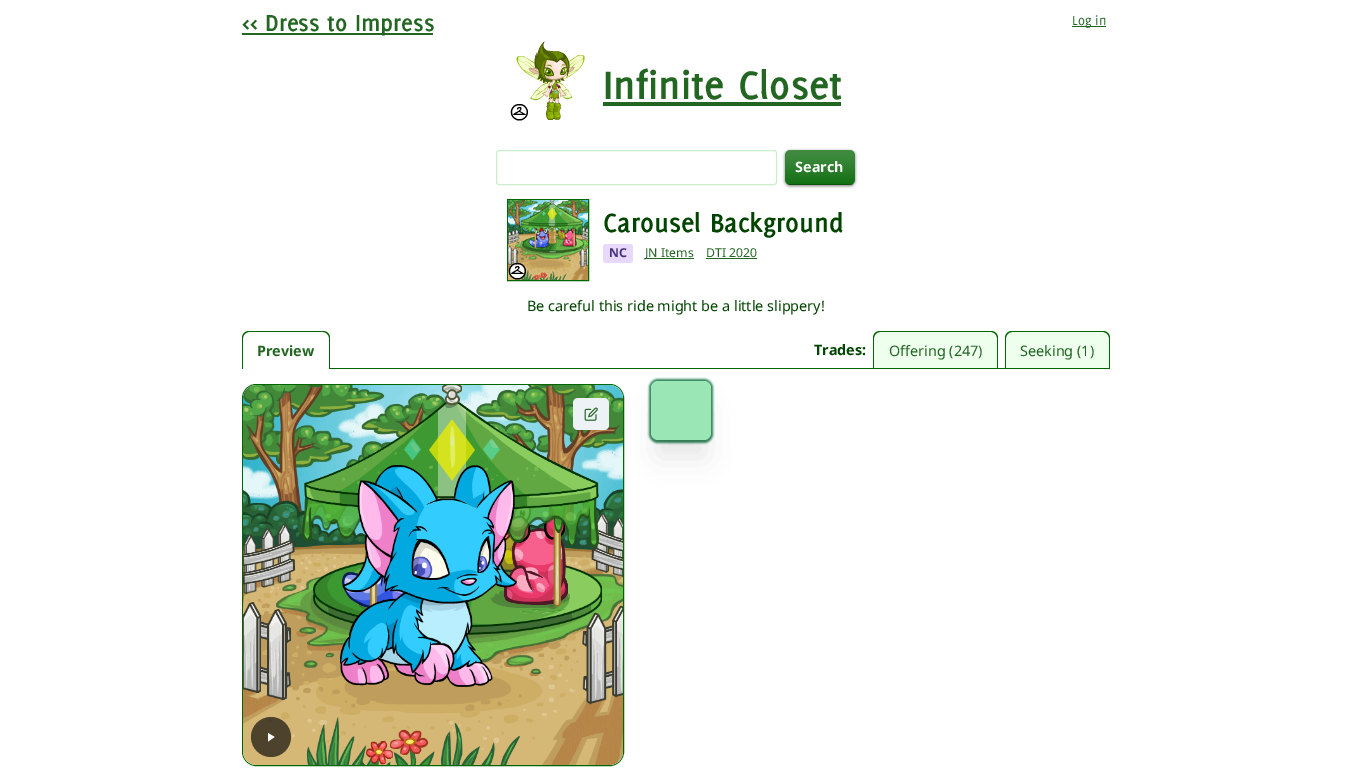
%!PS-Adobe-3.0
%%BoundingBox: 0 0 1351 768
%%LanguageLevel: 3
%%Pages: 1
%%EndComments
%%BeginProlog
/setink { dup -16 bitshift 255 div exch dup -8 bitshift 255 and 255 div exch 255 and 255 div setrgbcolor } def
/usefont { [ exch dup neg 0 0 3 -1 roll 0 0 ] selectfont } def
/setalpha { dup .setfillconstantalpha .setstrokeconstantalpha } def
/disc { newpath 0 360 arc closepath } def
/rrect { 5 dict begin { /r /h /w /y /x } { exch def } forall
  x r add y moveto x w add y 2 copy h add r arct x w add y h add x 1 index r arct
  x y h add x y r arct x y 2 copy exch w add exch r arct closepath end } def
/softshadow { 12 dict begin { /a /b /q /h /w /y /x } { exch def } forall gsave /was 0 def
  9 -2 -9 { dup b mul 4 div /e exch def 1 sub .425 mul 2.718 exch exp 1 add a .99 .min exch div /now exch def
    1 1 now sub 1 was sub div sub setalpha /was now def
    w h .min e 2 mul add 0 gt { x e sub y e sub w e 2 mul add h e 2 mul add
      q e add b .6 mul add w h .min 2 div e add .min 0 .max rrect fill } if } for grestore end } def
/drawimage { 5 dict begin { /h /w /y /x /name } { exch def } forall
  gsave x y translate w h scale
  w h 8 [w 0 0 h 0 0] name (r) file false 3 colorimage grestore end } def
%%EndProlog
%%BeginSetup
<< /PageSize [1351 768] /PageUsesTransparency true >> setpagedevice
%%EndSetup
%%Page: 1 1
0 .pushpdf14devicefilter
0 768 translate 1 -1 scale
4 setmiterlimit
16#FFFFFF setink
0 0 1351 768 rectfill
16#226622 setink
242 33 191 2 rectfill
/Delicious-Bold 25.25 usefont
242 31 moveto (<< Dress to Impress) show
1072 26 34 1 rectfill
/Delicious-Regular 14.4 usefont
1072 25 moveto (Log in) show
(img1.raw) 510 41 75 80 drawimage
/Delicious-Bold 43.25 usefont
603 99 moveto (Infinite Closet) show
603 102 238 4 rectfill
16#CCEECC setink
496.5 150.5 280 34 2.5 rrect stroke
16#000000 setink
785 151 70 35 5 1.5 0.5 softshadow
16#006400 setink
785 150 70 35 5 rrect fill
(img2.raw) 785 150 70 35 drawimage
0.25 setalpha
16#000000 setink
788 184 65 1 rectfill
/NotoSans-Bold 14.4 usefont
1 setalpha
16#FFFFFF setink
795 172 moveto (Search) show
16#006600 setink
330 368 780 1 rectfill
507.5 199.5 81 81 rectstroke
(img3.raw) 508 200 80 80 drawimage
/Delicious-Bold 28.75 usefont
16#004400 setink
603 232 moveto (Carousel Background) show
16#E9D8FD setink
603 244 30 19 3 rrect fill
/NotoSans-Bold 12.25 usefont
16#44337A setink
609 257 moveto (NC) show
16#226622 setink
645 258 49 1 rectfill
/NotoSans-Regular 12.25 usefont
645 257 moveto (JN Items) show
706 257 moveto (DTI 2020) show
706 258 51 1 rectfill
/NotoSans-Regular 14.4 usefont
16#004400 setink
527 311 moveto (Be careful this ride might be a little slippery!) show
16#006600 setink
249 331 moveto 323 331 lineto 327 331 330 334 330 338 curveto 330 369 lineto 242 369 lineto 242 338 lineto 242 334 245 331 249 331 curveto closepath 249 332 moveto 323 332 lineto 326 332 329 335 329 338 curveto 329 369 lineto 243 369 lineto 243 338 lineto 243 335 246 332 249 332 curveto closepath eofill
/NotoSans-Bold 14.4 usefont
16#226622 setink
257 356 moveto (Preview) show
16#004400 setink
814 355 moveto (Trades:) show
16#EEFFEE setink
880 331 moveto 991 331 lineto 995 331 998 334 998 338 curveto 998 368 lineto 873 368 lineto 873 338 lineto 873 334 876 331 880 331 curveto closepath fill
16#006600 setink
880 331 moveto 991 331 lineto 995 331 998 334 998 338 curveto 998 368 lineto 873 368 lineto 873 338 lineto 873 334 876 331 880 331 curveto closepath 880 332 moveto 991 332 lineto 994 332 997 335 997 338 curveto 997 368 lineto 874 368 lineto 874 338 lineto 874 335 877 332 880 332 curveto closepath eofill
/NotoSans-Regular 14.4 usefont
16#226622 setink
889 356 moveto (Offering \(247\)) show
16#EEFFEE setink
1012 331 moveto 1103 331 lineto 1107 331 1110 334 1110 338 curveto 1110 368 lineto 1005 368 lineto 1005 338 lineto 1005 334 1008 331 1012 331 curveto closepath fill
16#006600 setink
1012 331 moveto 1103 331 lineto 1107 331 1110 334 1110 338 curveto 1110 368 lineto 1005 368 lineto 1005 338 lineto 1005 334 1008 331 1012 331 curveto closepath 1012 332 moveto 1103 332 lineto 1106 332 1109 335 1109 338 curveto 1109 368 lineto 1006 368 lineto 1006 338 lineto 1006 335 1009 332 1012 332 curveto closepath eofill
16#226622 setink
1020 356 moveto (Seeking \(1\)) show
16#006600 setink
242.5 384.5 381 381 13.5 rrect stroke
(img4.raw) 243 385 380 380 drawimage
(img9.raw) 340 598 88 88 drawimage
(img10.raw) 388 592 105 95 drawimage
(img6.raw) 357 480 158 124 drawimage
(img7.raw) 408 526 85 54 drawimage
(img8.raw) 437 586 43 10 drawimage
(img5.raw) 342 465 175 127 drawimage
0.64 setalpha
16#000000 setink
271 737 20 disc fill
1 setalpha
16#FFFFFF setink
268 733 moveto 268 741.5 lineto 274.5 737 lineto closepath fill
16#EDF2F7 setink
573 398 36 32 5 rrect fill
(img11.raw) 584 407 14 14 drawimage
16#2F855A setink
649 379 64 64 9 1 1 softshadow
16#000000 setink
657 409 48 48 1 14 0.1 softshadow
16#9AE6B4 setink
651 381 60 59 7 rrect fill
.poppdf14devicefilter showpage
%%EOF
